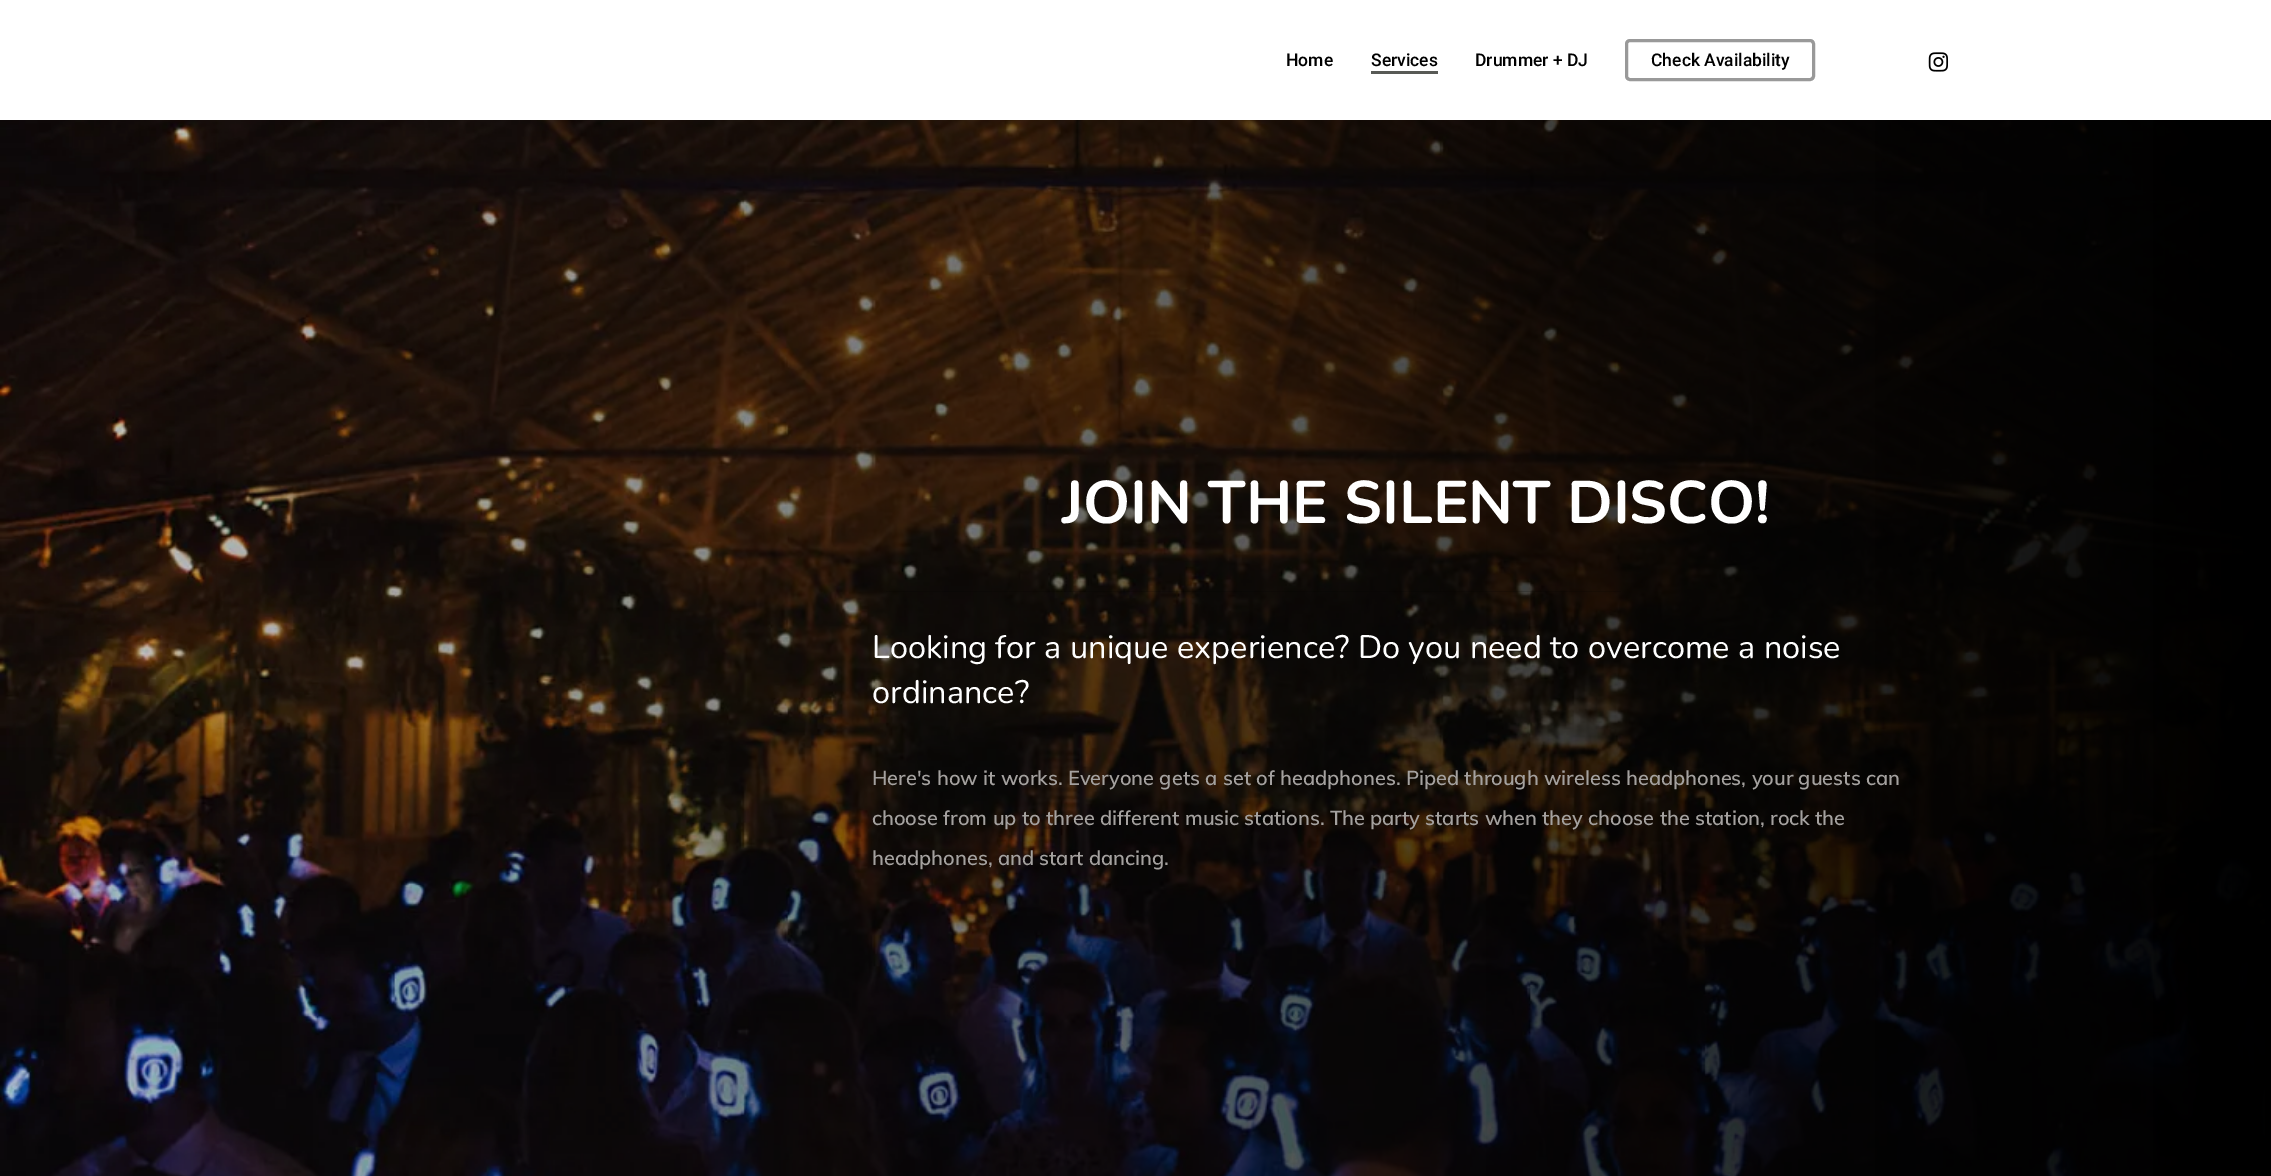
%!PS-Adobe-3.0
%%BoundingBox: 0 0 2271 1176
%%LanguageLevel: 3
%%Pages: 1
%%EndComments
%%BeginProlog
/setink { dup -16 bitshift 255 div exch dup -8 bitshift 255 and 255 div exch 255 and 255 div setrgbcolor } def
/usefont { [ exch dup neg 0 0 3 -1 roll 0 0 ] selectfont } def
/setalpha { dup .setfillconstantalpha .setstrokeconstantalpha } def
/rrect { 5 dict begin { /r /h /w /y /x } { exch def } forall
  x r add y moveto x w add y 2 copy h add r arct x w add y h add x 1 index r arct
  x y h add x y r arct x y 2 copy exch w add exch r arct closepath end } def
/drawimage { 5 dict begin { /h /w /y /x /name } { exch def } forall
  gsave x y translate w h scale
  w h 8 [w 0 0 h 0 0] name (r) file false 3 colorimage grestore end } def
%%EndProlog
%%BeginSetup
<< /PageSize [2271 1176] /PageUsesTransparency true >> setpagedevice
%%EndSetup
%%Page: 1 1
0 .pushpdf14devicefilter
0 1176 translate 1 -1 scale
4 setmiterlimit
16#FFFFFF setink
0 0 2271 1176 rectfill
/Roboto-Medium 17.5 usefont
16#000000 setink
1286 66 moveto (Home) show
1371 66 moveto (Services) show
16#585A56 setink
1371 71 67 3 rectfill
16#000000 setink
1475 66 moveto (Drummer + DJ) show
16#999999 setink
3 setlinewidth
1626.5 40.5 187 39 3.5 rrect stroke
16#000000 setink
1651 66 moveto (Check Availability) show
(img1.raw) 1928 52 21 20 drawimage
(img2.raw) 0 120 2271 1056 drawimage
0.15 setalpha
886 591 735 1 rectfill
/Nunito-Bold 60 usefont
1 setalpha
16#FFFFFF setink
1062 523 moveto (JOIN THE SILENT DISCO!) show
/Nunito-Regular 32.5 usefont
872 658 moveto (Looking for a unique experience? Do you need to overcome a noise) show
872 703 moveto (ordinance?) show
/Muli-SemiBold 20 usefont
16#A4A19F setink
[
    [(Here's how it works. Everyone gets a set of headphones. Piped through wireless headphones, your guests can) 872 785]
    [(choose from up to three different music stations. The party starts when they choose the station, rock the) 872 825]
    [(headphones, and start dancing.) 872 865]
] { aload pop moveto show } forall
.poppdf14devicefilter showpage
%%EOF
